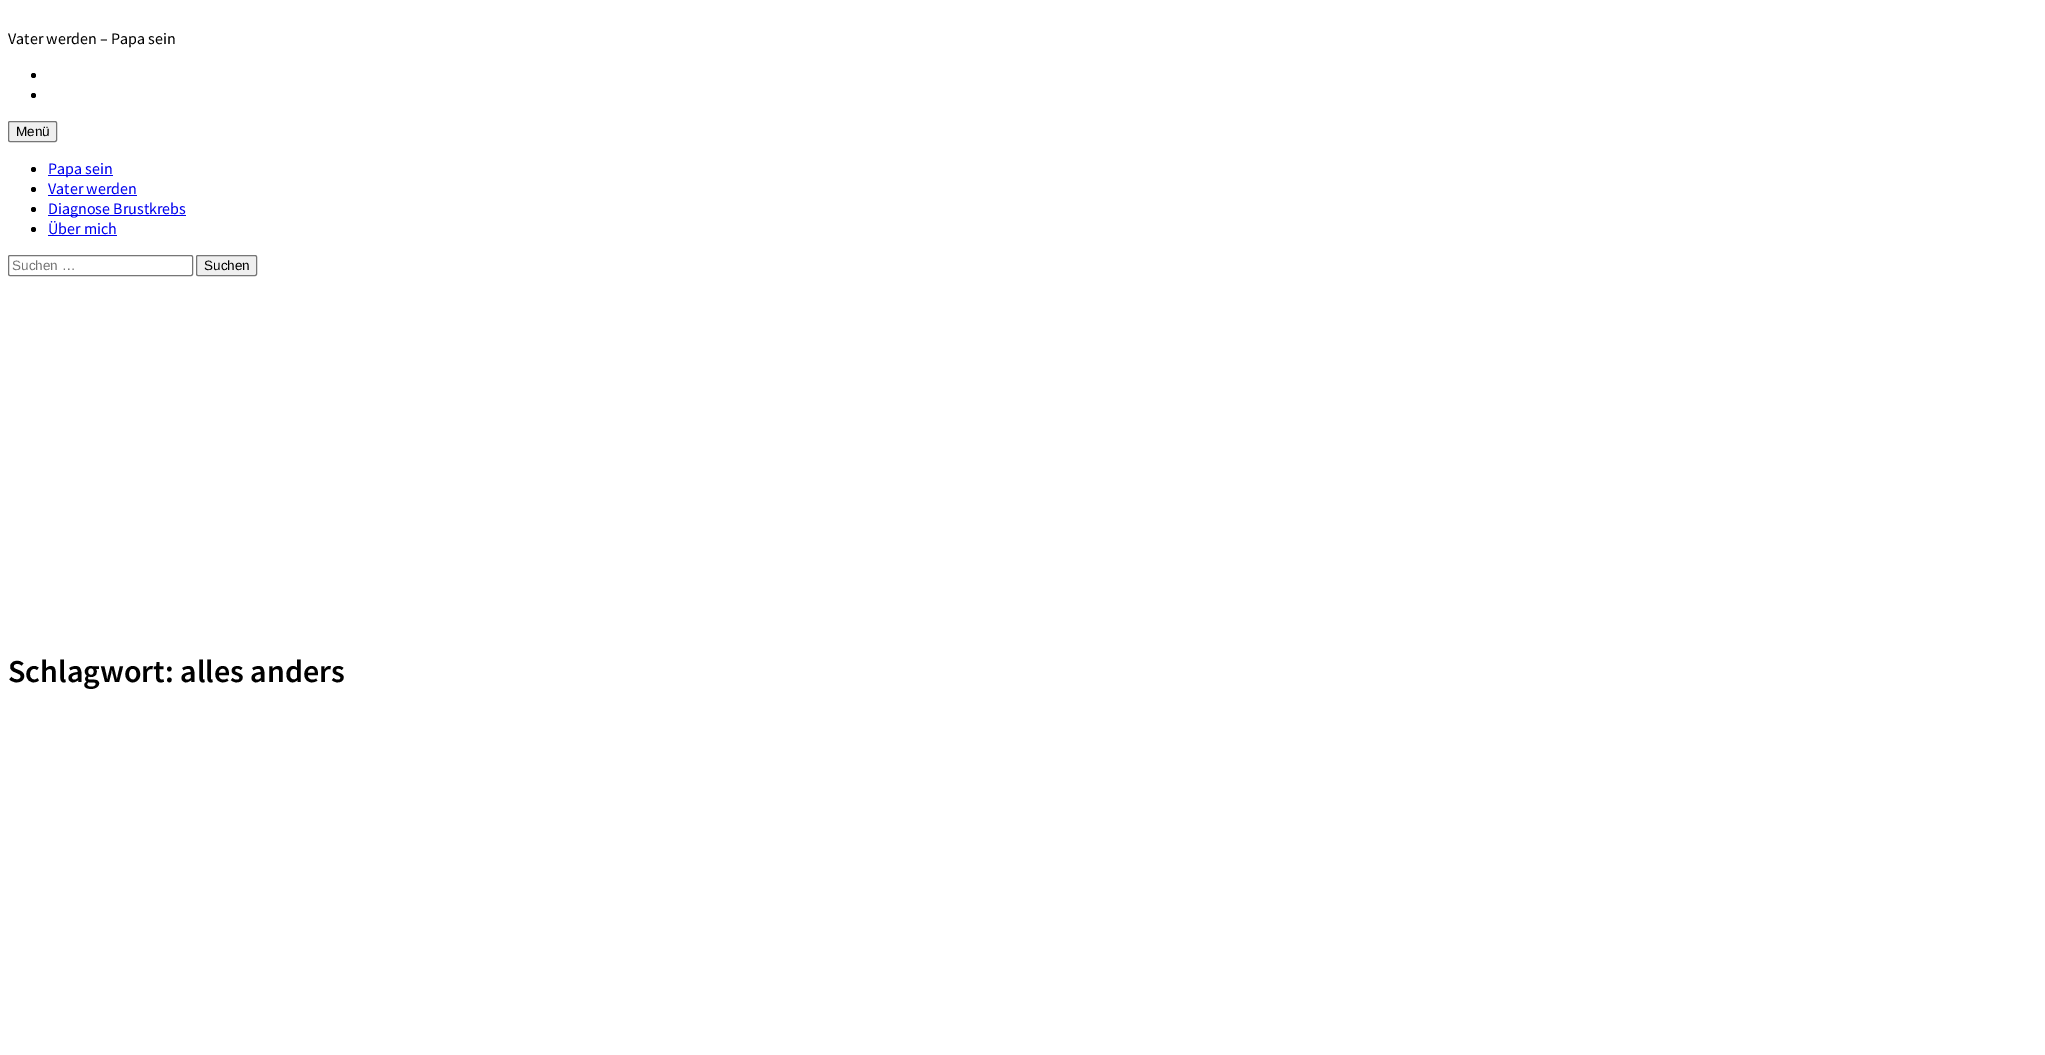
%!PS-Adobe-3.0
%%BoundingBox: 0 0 2045 1055
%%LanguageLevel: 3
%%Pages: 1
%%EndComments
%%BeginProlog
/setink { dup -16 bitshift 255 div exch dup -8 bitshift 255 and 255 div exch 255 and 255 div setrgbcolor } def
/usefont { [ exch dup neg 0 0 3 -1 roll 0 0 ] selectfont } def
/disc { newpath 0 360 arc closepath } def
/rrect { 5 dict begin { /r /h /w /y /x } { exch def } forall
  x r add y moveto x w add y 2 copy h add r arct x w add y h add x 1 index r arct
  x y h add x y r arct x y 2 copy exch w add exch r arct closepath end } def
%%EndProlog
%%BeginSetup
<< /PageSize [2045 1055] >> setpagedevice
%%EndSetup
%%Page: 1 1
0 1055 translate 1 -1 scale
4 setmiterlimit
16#FFFFFF setink
0 0 2045 1055 rectfill
/SourceSansPro-Regular 16 usefont
16#000000 setink
8 44 moveto (Vater werden – Papa sein) show
33.5 75.5 2.5 disc fill
33.5 95.5 2.5 disc fill
16#EFEFEF setink
8.5 121.5 48 20 1.5 rrect gsave fill grestore
16#767676 setink
stroke
/LiberationSans-Regular 13.5 usefont
16#000000 setink
16 136 moveto (Menü) show
33.5 169.5 2.5 disc fill
16#0000EE setink
48 175 65 1 rectfill
/SourceSansPro-Regular 16 usefont
48 174 moveto (Papa sein) show
16#000000 setink
33.5 189.5 2.5 disc fill
16#0000EE setink
48 194 moveto (Vater werden) show
48 195 89 1 rectfill
16#000000 setink
33.5 209.5 2.5 disc fill
16#0000EE setink
48 215 138 1 rectfill
48 214 moveto (Diagnose Brustkrebs) show
16#000000 setink
33.5 229.5 2.5 disc fill
16#0000EE setink
48 234 moveto (Über mich) show
48 235 69 1 rectfill
16#767676 setink
8.5 255.5 184 20 1.5 rrect stroke
/LiberationSans-Regular 13.5 usefont
16#757575 setink
12 270 moveto (Suchen …) show
16#EFEFEF setink
196.5 255.5 60 20 1.5 rrect gsave fill grestore
16#767676 setink
stroke
16#000000 setink
204 270 moveto (Suchen) show
/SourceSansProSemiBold-SemiBold 32 usefont
8 682 moveto (Schlagwort: alles anders) show
showpage
%%EOF
